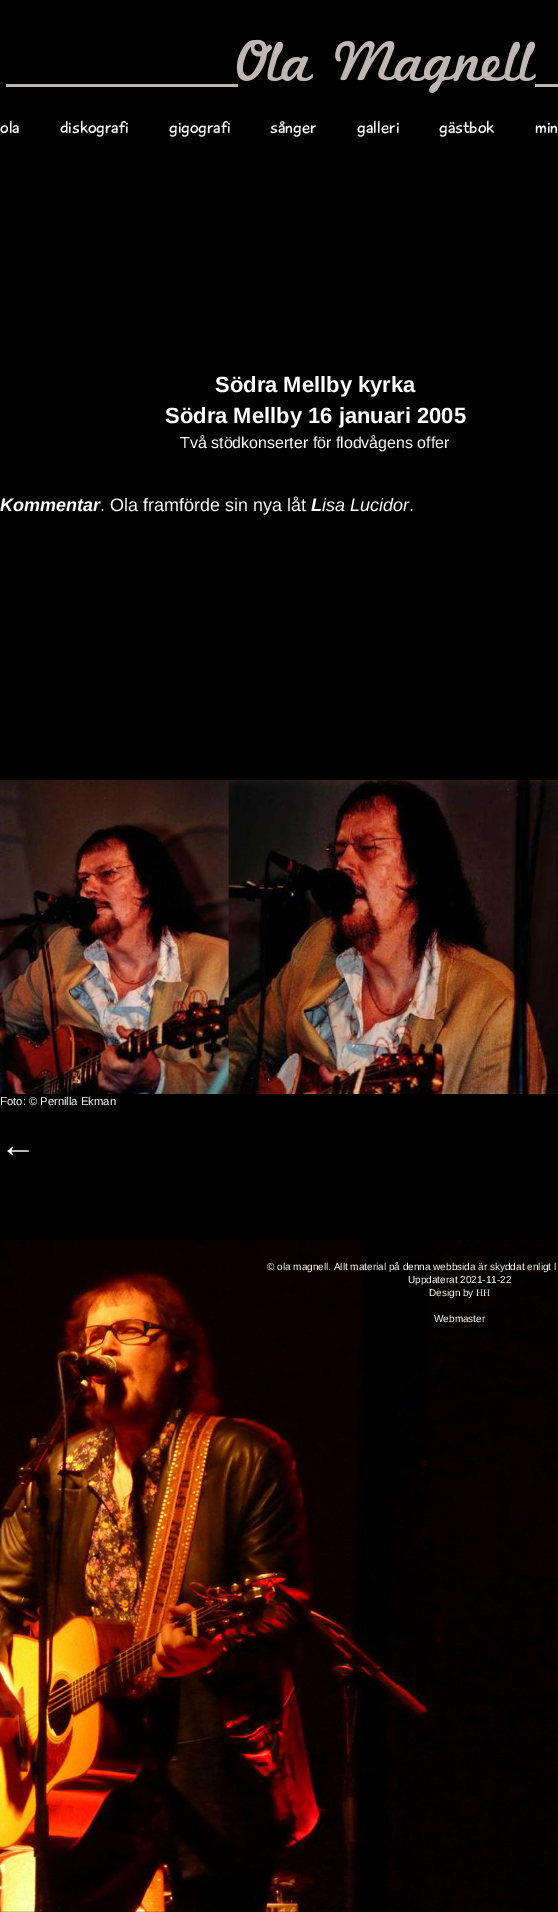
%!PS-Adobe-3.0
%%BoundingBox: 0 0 558 1912
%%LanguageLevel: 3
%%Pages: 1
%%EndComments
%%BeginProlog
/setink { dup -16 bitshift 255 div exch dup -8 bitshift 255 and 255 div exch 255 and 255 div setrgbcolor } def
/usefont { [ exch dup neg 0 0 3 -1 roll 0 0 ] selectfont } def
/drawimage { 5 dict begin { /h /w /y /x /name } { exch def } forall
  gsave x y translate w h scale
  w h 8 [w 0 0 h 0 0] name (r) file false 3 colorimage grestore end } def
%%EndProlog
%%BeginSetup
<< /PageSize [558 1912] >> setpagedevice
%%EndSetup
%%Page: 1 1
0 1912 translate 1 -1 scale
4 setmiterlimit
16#000000 setink
0 0 558 1912 rectfill
(img1.raw) 0 1240 558 672 drawimage
(img2.raw) 6 39 552 54 drawimage
/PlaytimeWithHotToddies-Regular 18 usefont
16#FFFFFF setink
[
    [(ola) 0 133]
    [(diskografi) 60 133]
    [(gigografi) 169 133]
    [(sånger) 270 133]
    [(galleri) 357 133]
    [(gästbok) 439 133]
    [(min) 535 133]
] { aload pop moveto show } forall
/LiberationSans-Bold 22 usefont
215 392 moveto (Södra Mellby kyrka) show
165 423 moveto (Södra Mellby 16 januari 2005) show
/LiberationSans-Regular 16 usefont
180 448 moveto (Två stödkonserter för flodvågens offer) show
/LiberationSans-BoldItalic 18 usefont
0 511 moveto (Kommentar) show
/LiberationSans-Regular 18 usefont
100 511 moveto (. Ola framförde sin nya låt) show
/LiberationSans-BoldItalic 18 usefont
311 511 moveto (L) show
/LiberationSans-Italic 18 usefont
322 511 moveto (isa Lucidor) show
/LiberationSans-Regular 18 usefont
409 511 moveto (.) show
(img3.raw) 0 780 558 314 drawimage
/LiberationSans-Regular 11.25 usefont
0 1105 moveto (Foto: © Pernilla Ekman) show
/LiberationSans-Regular 36 usefont
0 1157 moveto (←) show
/LiberationSans-Regular 10 usefont
[
    [(© ola magnell. Allt material på denna webbsida är skyddat enligt l) 267 1270]
    [(Uppdaterat 2021-11-22) 408 1283]
    [(Design by) 429 1296]
] { aload pop moveto show } forall
/LiberationSerif-Regular 10 usefont
476 1296 moveto (HH) show
/LiberationSans-Regular 10 usefont
434 1322 moveto (Webmaster) show
showpage
%%EOF
